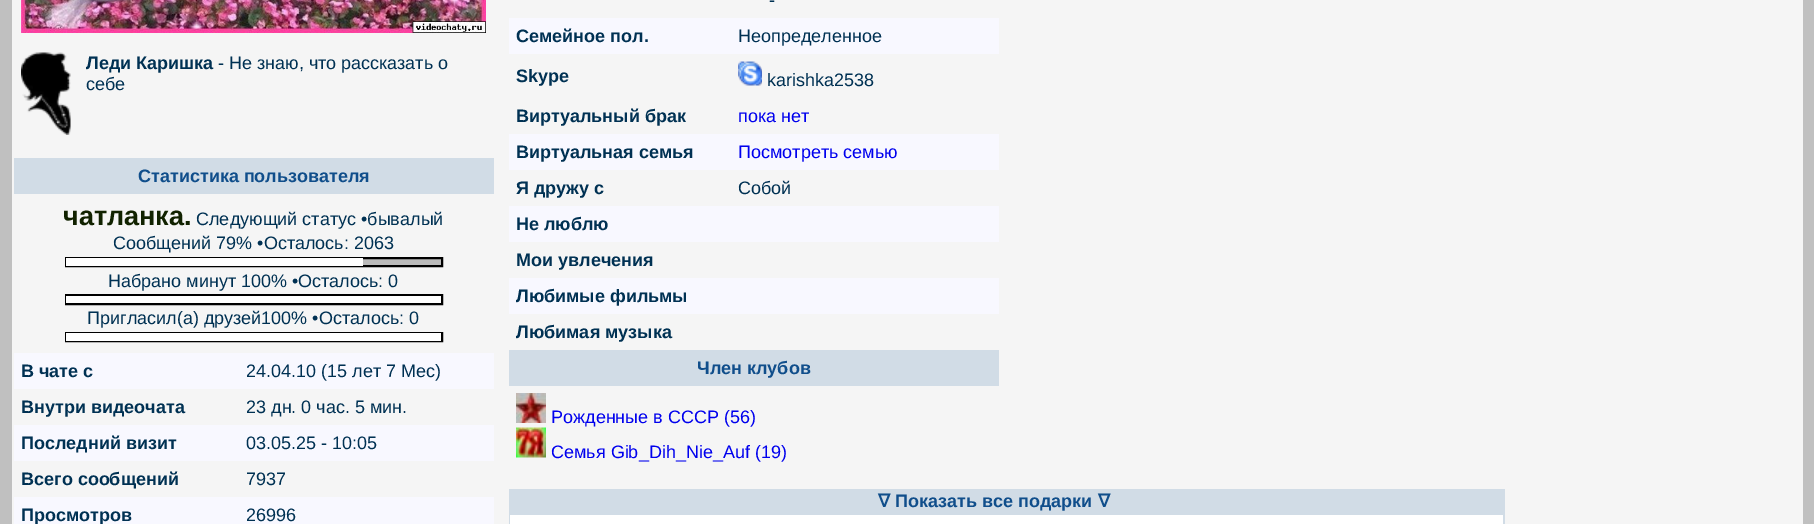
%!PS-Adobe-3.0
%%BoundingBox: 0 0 1814 524
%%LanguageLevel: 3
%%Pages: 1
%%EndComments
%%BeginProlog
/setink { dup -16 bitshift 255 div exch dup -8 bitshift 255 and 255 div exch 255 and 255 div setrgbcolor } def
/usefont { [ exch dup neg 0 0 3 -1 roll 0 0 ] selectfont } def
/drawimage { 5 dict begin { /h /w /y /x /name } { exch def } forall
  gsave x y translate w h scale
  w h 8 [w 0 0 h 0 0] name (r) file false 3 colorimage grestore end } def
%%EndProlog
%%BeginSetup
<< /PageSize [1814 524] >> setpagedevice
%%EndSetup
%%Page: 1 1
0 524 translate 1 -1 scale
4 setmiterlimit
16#C0C0C0 setink
0 0 1814 524 rectfill
16#F5F5F5 setink
12 0 1791 524 rectfill
(img1.raw) 21 0 465 33 drawimage
(img2.raw) 21 52 50 83 drawimage
/LiberationSans-Bold 18 usefont
16#003153 setink
86 69 moveto (Леди Каришка) show
/LiberationSans-Regular 18 usefont
218 69 moveto (- Не знаю, что рассказать о) show
86 90 moveto (себе) show
16#D1DCE6 setink
14 158 480 36 rectfill
/LiberationSans-Bold 18 usefont
16#104E8B setink
138 182 moveto (Статистика пользователя) show
/LiberationSans-Bold 27 usefont
16#112200 setink
63 225 moveto (чатланка.) show
/LiberationSans-Regular 18 usefont
16#003153 setink
196 225 moveto (Следующий статус •бывалый) show
113 249 moveto (Сообщений 79% •Осталось: 2063) show
16#BBBBBB setink
363 259 78 6 rectfill
16#000000 setink
2 setlinewidth
66 258 376 8 rectstroke
16#FFFFFF setink
66 258 297 8 rectfill
16#003153 setink
108 287 moveto (Набрано минут 100% •Осталось: 0) show
16#000000 setink
66 295 376 9 rectstroke
16#FFFFFF setink
66 296 375 7 rectfill
16#003153 setink
87 324 moveto (Пригласил\(а\) друзей100% •Осталось: 0) show
16#000000 setink
66 333 376 8 rectstroke
16#FFFFFF setink
66 333 375 8 rectfill
16#F8F8FF setink
14 353 480 36 rectfill
/LiberationSans-Bold 18 usefont
16#003153 setink
21 377 moveto (В чате с) show
/LiberationSans-Regular 18 usefont
246 377 moveto (24.04.10 \(15 лет 7 Мес\)) show
/LiberationSans-Bold 18 usefont
21 413 moveto (Внутри видеочата) show
/LiberationSans-Regular 18 usefont
246 413 moveto (23 дн. 0 час. 5 мин.) show
16#F8F8FF setink
14 425 480 36 rectfill
/LiberationSans-Bold 18 usefont
16#003153 setink
21 449 moveto (Последний визит) show
/LiberationSans-Regular 18 usefont
246 449 moveto (03.05.25 - 10:05) show
/LiberationSans-Bold 18 usefont
21 485 moveto (Всего сообщений) show
/LiberationSans-Regular 18 usefont
246 485 moveto (7937) show
16#F8F8FF setink
14 497 480 27 rectfill
/LiberationSans-Bold 18 usefont
16#003153 setink
21 521 moveto (Просмотров) show
/LiberationSans-Regular 18 usefont
246 521 moveto (26996) show
769 6 moveto (-) show
16#F8F8FF setink
509 18 490 36 rectfill
/LiberationSans-Bold 18 usefont
16#003153 setink
516 42 moveto (Семейное пол.) show
/LiberationSans-Regular 18 usefont
738 42 moveto (Неопределенное) show
/LiberationSans-Bold 18 usefont
516 82 moveto (Skype) show
(img3.raw) 738 61 24 25 drawimage
/LiberationSans-Regular 18 usefont
767 86 moveto (karishka2538) show
/LiberationSans-Bold 18 usefont
516 122 moveto (Виртуальный брак) show
/LiberationSans-Regular 18 usefont
16#0000EE setink
738 122 moveto (пока нет) show
16#F8F8FF setink
509 134 490 36 rectfill
/LiberationSans-Bold 18 usefont
16#003153 setink
516 158 moveto (Виртуальная семья) show
/LiberationSans-Regular 18 usefont
16#0000EE setink
738 158 moveto (Посмотреть семью) show
/LiberationSans-Bold 18 usefont
16#003153 setink
516 194 moveto (Я дружу с) show
/LiberationSans-Regular 18 usefont
738 194 moveto (Собой) show
16#F8F8FF setink
509 206 490 36 rectfill
/LiberationSans-Bold 18 usefont
16#003153 setink
516 230 moveto (Не люблю) show
516 266 moveto (Мои увлечения) show
16#F8F8FF setink
509 278 490 36 rectfill
16#003153 setink
516 302 moveto (Любимые фильмы) show
516 338 moveto (Любимая музыка) show
16#D1DCE6 setink
509 350 490 36 rectfill
16#104E8B setink
697 374 moveto (Член клубов) show
(img4.raw) 516 393 30 30 drawimage
/LiberationSans-Regular 18 usefont
16#0000EE setink
551 423 moveto (Рожденные в СССР \(56\)) show
(img5.raw) 516 427 30 31 drawimage
551 458 moveto (Семья Gib_Dih_Nie_Auf \(19\)) show
16#D1DCE6 setink
509 489 996 35 rectfill
/DejaVuSans-Bold 18 usefont
16#104E8B setink
878 507 moveto (∇) show
/LiberationSans-Bold 18 usefont
895 507 moveto (Показать все подарки) show
/DejaVuSans-Bold 18 usefont
1098 507 moveto (∇) show
16#FFFFFF setink
510 515 993 9 rectfill
showpage
%%EOF
